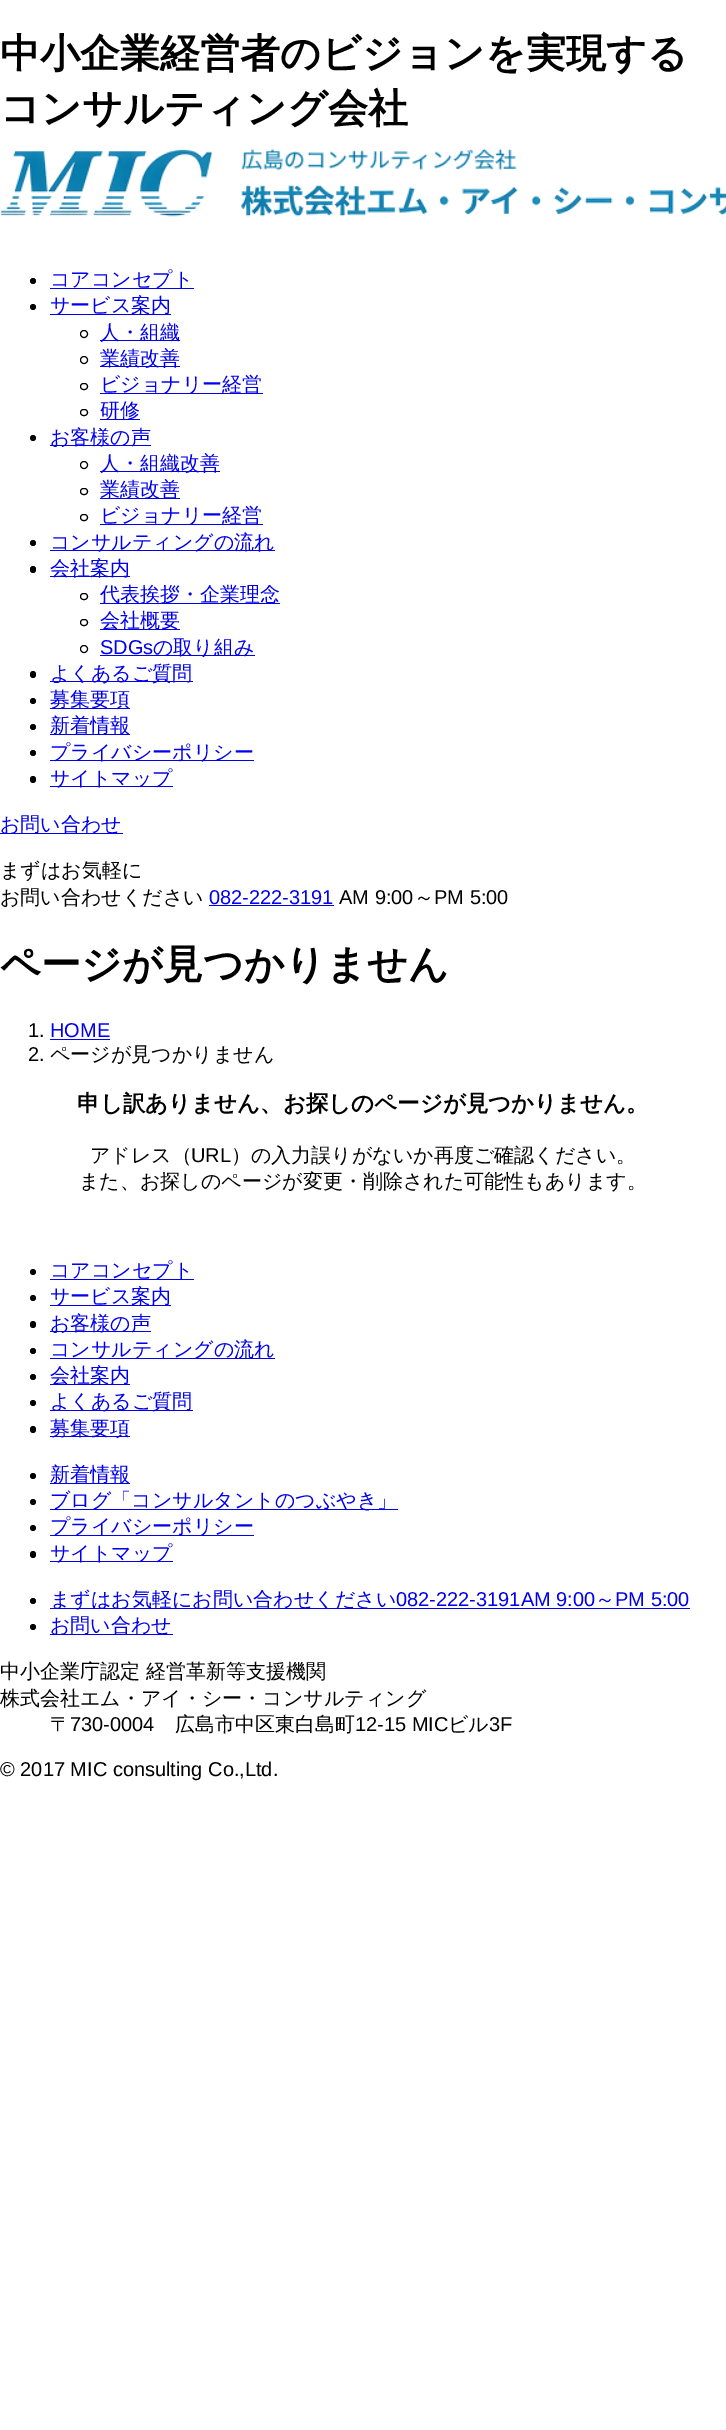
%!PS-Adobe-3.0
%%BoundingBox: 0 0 726 2430
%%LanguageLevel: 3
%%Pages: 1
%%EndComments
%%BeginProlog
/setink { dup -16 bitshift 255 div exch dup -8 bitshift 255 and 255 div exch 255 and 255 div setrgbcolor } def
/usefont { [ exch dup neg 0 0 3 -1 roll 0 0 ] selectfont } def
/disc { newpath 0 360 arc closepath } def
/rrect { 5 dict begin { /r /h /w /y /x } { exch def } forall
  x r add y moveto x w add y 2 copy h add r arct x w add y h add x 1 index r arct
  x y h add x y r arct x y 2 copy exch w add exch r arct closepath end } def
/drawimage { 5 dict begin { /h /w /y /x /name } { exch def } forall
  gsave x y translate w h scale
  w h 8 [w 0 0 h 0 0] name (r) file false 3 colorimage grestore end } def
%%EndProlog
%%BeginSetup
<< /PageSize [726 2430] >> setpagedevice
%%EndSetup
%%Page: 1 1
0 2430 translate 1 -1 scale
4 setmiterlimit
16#FFFFFF setink
0 0 726 2430 rectfill
/WenQuanYiZenHei-Bold 40 usefont
16#000000 setink
0 67 moveto (中小企業経営者のビジョンを実現する) show
0 122 moveto (コンサルティング会社) show
(img1.raw) 0 148 726 69 drawimage
33 281 3 disc fill
16#0000EE setink
50 288 144 1 rectfill
/WenQuanYiZenHei-Medium 20 usefont
50 286 moveto (コアコンセプト) show
16#000000 setink
33 307 3 disc fill
16#0000EE setink
50 314 121 1 rectfill
50 312 moveto (サービス案内) show
16#000000 setink
84 334 3.5 disc stroke
16#0000EE setink
100 340 80 1 rectfill
100 339 moveto (人・組織) show
16#000000 setink
84 360 3.5 disc stroke
16#0000EE setink
100 366 80 1 rectfill
100 365 moveto (業績改善) show
16#000000 setink
80.5 383.5 7 6 3 rrect stroke
16#0000EE setink
100 393 163 1 rectfill
100 391 moveto (ビジョナリー経営) show
16#000000 setink
80.5 409.5 7 6 3 rrect stroke
16#0000EE setink
100 419 40 1 rectfill
100 417 moveto (研修) show
16#000000 setink
33 438 3 disc fill
16#0000EE setink
50 445 101 1 rectfill
50 444 moveto (お客様の声) show
16#000000 setink
84 465 3.5 disc stroke
16#0000EE setink
100 471 120 1 rectfill
100 470 moveto (人・組織改善) show
16#000000 setink
80.5 488.5 7 6 3 rrect stroke
16#0000EE setink
100 498 80 1 rectfill
100 496 moveto (業績改善) show
16#000000 setink
80.5 514.5 7 6 3 rrect stroke
16#0000EE setink
100 524 163 1 rectfill
100 522 moveto (ビジョナリー経営) show
16#000000 setink
33 543 3 disc fill
16#0000EE setink
50 550 225 1 rectfill
50 549 moveto (コンサルティングの流れ) show
16#000000 setink
30 566 6 7 3 rrect fill
16#0000EE setink
50 576 80 1 rectfill
50 575 moveto (会社案内) show
16#000000 setink
80.5 593.5 7 6 3 rrect stroke
16#0000EE setink
100 603 180 1 rectfill
100 601 moveto (代表挨拶・企業理念) show
16#000000 setink
80.5 619.5 7 6 3 rrect stroke
16#0000EE setink
100 629 80 1 rectfill
100 627 moveto (会社概要) show
16#000000 setink
84 649 3.5 disc stroke
/LiberationSans-Regular 20 usefont
16#0000EE setink
100 654 moveto (SDGs) show
100 655 155 1 rectfill
/WenQuanYiZenHei-Medium 20 usefont
153 654 moveto (の取り組み) show
16#000000 setink
30 671 6 7 3 rrect fill
16#0000EE setink
50 681 143 1 rectfill
50 680 moveto (よくあるご質問) show
16#000000 setink
33 701 3 disc fill
16#0000EE setink
50 708 80 1 rectfill
50 706 moveto (募集要項) show
16#000000 setink
33 727 3 disc fill
16#0000EE setink
50 734 80 1 rectfill
50 732 moveto (新着情報) show
16#000000 setink
33 753 3 disc fill
16#0000EE setink
50 760 204 1 rectfill
50 759 moveto (プライバシーポリシー) show
16#000000 setink
30 776 6 7 3 rrect fill
16#0000EE setink
50 786 123 1 rectfill
50 785 moveto (サイトマップ) show
0 833 123 1 rectfill
0 831 moveto (お問い合わせ) show
16#000000 setink
0 877 moveto (まずはお気軽に) show
0 904 moveto (お問い合わせください) show
/LiberationSans-Regular 20 usefont
16#0000EE setink
209 904 moveto (082-222-3191) show
209 905 125 1 rectfill
16#000000 setink
339 904 moveto (AM 9:00) show
/WenQuanYiZenHei-Medium 20 usefont
414 904 moveto (～) show
/LiberationSans-Regular 20 usefont
434 904 moveto (PM 5:00) show
/WenQuanYiZenHei-Bold 40 usefont
0 978 moveto (ページが見つかりません) show
/LiberationSans-Regular 20 usefont
28 1037 moveto (1.) show
16#0000EE setink
50 1037 moveto (HOME) show
50 1039 60 1 rectfill
16#000000 setink
28 1061 moveto (2.) show
/WenQuanYiZenHei-Medium 20 usefont
50 1061 moveto (ページが見つかりません) show
/WenQuanYiZenHei-Bold 22.5 usefont
77 1111 moveto (申し訳ありません、お探しのページが見つかりません。) show
/WenQuanYiZenHei-Medium 20 usefont
90 1162 moveto (アドレス（) show
/LiberationSans-Regular 20 usefont
191 1162 moveto (URL) show
/WenQuanYiZenHei-Medium 20 usefont
231 1162 moveto (）の入力誤りがないか再度ご確認ください。) show
79 1188 moveto (また、お探しのページが変更・削除された可能性もあります。) show
33 1272 3 disc fill
16#0000EE setink
50 1279 144 1 rectfill
50 1277 moveto (コアコンセプト) show
16#000000 setink
33 1298 3 disc fill
16#0000EE setink
50 1305 121 1 rectfill
50 1303 moveto (サービス案内) show
16#000000 setink
30 1321 6 7 3 rrect fill
16#0000EE setink
50 1331 101 1 rectfill
50 1330 moveto (お客様の声) show
16#000000 setink
33 1351 3 disc fill
16#0000EE setink
50 1358 225 1 rectfill
50 1356 moveto (コンサルティングの流れ) show
16#000000 setink
33 1377 3 disc fill
16#0000EE setink
50 1384 80 1 rectfill
50 1382 moveto (会社案内) show
16#000000 setink
33 1403 3 disc fill
16#0000EE setink
50 1410 143 1 rectfill
50 1408 moveto (よくあるご質問) show
16#000000 setink
30 1426 6 7 3 rrect fill
16#0000EE setink
50 1436 80 1 rectfill
50 1435 moveto (募集要項) show
16#000000 setink
33 1476 3 disc fill
16#0000EE setink
50 1483 80 1 rectfill
50 1481 moveto (新着情報) show
16#000000 setink
33 1502 3 disc fill
16#0000EE setink
50 1509 348 1 rectfill
50 1507 moveto (ブログ「コンサルタントのつぶやき」) show
16#000000 setink
33 1528 3 disc fill
16#0000EE setink
50 1535 204 1 rectfill
50 1533 moveto (プライバシーポリシー) show
16#000000 setink
30 1551 6 7 3 rrect fill
16#0000EE setink
50 1561 123 1 rectfill
50 1560 moveto (サイトマップ) show
16#000000 setink
33 1601 3 disc fill
16#0000EE setink
50 1608 640 1 rectfill
50 1606 moveto (まずはお気軽にお問い合わせください) show
/LiberationSans-Regular 20 usefont
396 1606 moveto (082-222-3191AM 9:00) show
/WenQuanYiZenHei-Medium 20 usefont
595 1606 moveto (～) show
/LiberationSans-Regular 20 usefont
615 1606 moveto (PM 5:00) show
16#000000 setink
33 1627 3 disc fill
16#0000EE setink
50 1634 123 1 rectfill
/WenQuanYiZenHei-Medium 20 usefont
50 1632 moveto (お問い合わせ) show
16#000000 setink
[
    [(中小企業庁認定 経営革新等支援機関) 0 1678]
    [(株式会社エム・アイ・シー・コンサルティング) 0 1705]
    [(〒) 50 1731]
] { aload pop moveto show } forall
/LiberationSans-Regular 20 usefont
70 1731 moveto (730-0004) show
/WenQuanYiZenHei-Medium 20 usefont
175 1731 moveto (広島市中区東白島町) show
/LiberationSans-Regular 20 usefont
355 1731 moveto (12-15 MIC) show
/WenQuanYiZenHei-Medium 20 usefont
448 1731 moveto (ビル) show
/LiberationSans-Regular 20 usefont
489 1731 moveto (3F) show
0 1776 moveto (© 2017 MIC consulting Co.,Ltd.) show
showpage
%%EOF
